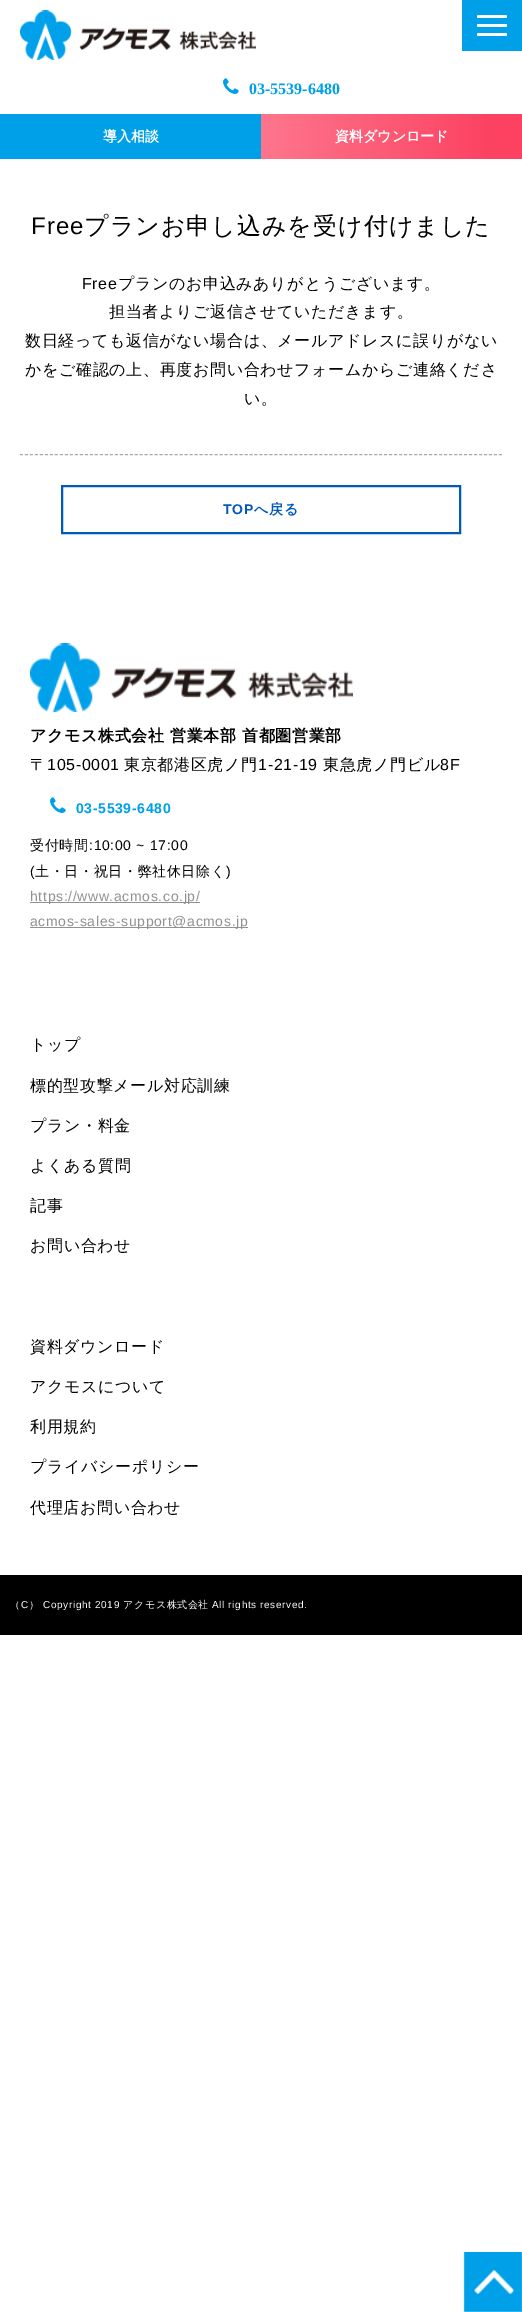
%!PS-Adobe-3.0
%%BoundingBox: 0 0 522 2312
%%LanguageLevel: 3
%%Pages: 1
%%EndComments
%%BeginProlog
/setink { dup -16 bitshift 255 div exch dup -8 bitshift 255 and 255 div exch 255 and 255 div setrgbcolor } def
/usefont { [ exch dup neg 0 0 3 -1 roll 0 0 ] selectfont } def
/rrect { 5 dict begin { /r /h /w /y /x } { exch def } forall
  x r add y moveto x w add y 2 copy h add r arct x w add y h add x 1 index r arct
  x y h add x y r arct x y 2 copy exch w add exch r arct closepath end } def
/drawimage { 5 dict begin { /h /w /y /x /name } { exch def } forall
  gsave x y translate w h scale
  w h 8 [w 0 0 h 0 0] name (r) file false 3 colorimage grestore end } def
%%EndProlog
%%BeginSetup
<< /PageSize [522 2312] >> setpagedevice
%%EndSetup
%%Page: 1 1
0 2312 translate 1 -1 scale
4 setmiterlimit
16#FFFFFF setink
0 0 522 2312 rectfill
16#00A0E9 setink
462 0 60 51 rectfill
16#FFFFFF setink
477 15 30 3 1.5 rrect fill
477 24 30 3 1.5 rrect fill
477 33 30 3 1.5 rrect fill
(img1.raw) 20 10 236 50 drawimage
(img2.raw) 223 78 16 16 drawimage
/LiberationSerif-Bold 16 usefont
16#00A0E9 setink
249 94 moveto (03-5539-6480) show
0 114 261 45 rectfill
/WenQuanYiZenHei-Bold 14 usefont
16#FFFFFF setink
103 141 moveto (導入相談) show
gsave 261 114 moveto 522 114 lineto 522 159 lineto 261 159 lineto closepath clip newpath
<< /ShadingType 2 /ColorSpace /DeviceRGB /Coords [522 136 261 137] /Extend [true true] /Function << /FunctionType 3 /Domain [0 1] /Functions [<< /FunctionType 2 /Domain [0 1] /C0 [0.988 0.255 0.38] /C1 [0.988 0.255 0.38] /N 1 >> << /FunctionType 2 /Domain [0 1] /C0 [0.988 0.255 0.38] /C1 [0.992 0.451 0.545] /N 1 >> << /FunctionType 2 /Domain [0 1] /C0 [0.992 0.451 0.545] /C1 [0.992 0.451 0.545] /N 1 >>] /Bounds [0.1 0.95] /Encode [0 1 0 1 0 1] >> >> shfill grestore
335 141 moveto (資料ダウンロード) show
/LiberationSans-Regular 24 usefont
16#000000 setink
31 234 moveto 1 0 (Free) ashow
/WenQuanYiZenHei-Medium 24 usefont
84 234 moveto 1 0 (プランお申し込みを受け付けました) ashow
/LiberationSans-Regular 16 usefont
82 289 moveto 0.65 0 (Free) ashow
/WenQuanYiZenHei-Medium 16 usefont
118 289 moveto 0.65 0 (プランのお申込みありがとうございます。) ashow
109 317 moveto 0.65 0 (担当者よりご返信させていただきます。) ashow
25 346 moveto 0.65 0 (数日経っても返信がない場合は、メールアドレスに誤りがない) ashow
25 375 moveto 0.65 0 (かをご確認の上、再度お問い合わせフォームからご連絡くださ) ashow
244 404 moveto 0.65 0 (い。) ashow
16#AAAAAA setink
[3 1.99] 0 setdash
20 454.5 moveto 502 454.5 lineto stroke
16#005AB9 setink
2 setlinewidth
[] 0 setdash
62 486 398 47 rectstroke
/LiberationSans-Bold 14 usefont
223 514 moveto 0.65 0 (TOP) ashow
/WenQuanYiZenHei-Bold 14 usefont
254 514 moveto 0.65 0 (へ戻る) ashow
(img3.raw) 30 643 323 69 drawimage
/WenQuanYiZenHei-Bold 16 usefont
16#000000 setink
30 741 moveto 0.65 0 (アクモス株式会社 営業本部 首都圏営業部) ashow
/WenQuanYiZenHei-Medium 16 usefont
30 770 moveto 0.65 0 (〒) ashow
/LiberationSans-Regular 16 usefont
47 770 moveto 0.65 0 (105-0001) ashow
/WenQuanYiZenHei-Medium 16 usefont
124 770 moveto 0.65 0 (東京都港区虎ノ門) ashow
/LiberationSans-Regular 16 usefont
258 770 moveto 0.65 0 (1-21-19) ashow
/WenQuanYiZenHei-Medium 16 usefont
323 770 moveto 0.65 0 (東急虎ノ門ビル) ashow
/LiberationSans-Regular 16 usefont
440 770 moveto 0.65 0 (8F) ashow
(img2.raw) 50 797 16 16 drawimage
/LiberationSans-Bold 14 usefont
16#00A0E9 setink
76 813 moveto 0.65 0 (03-5539-6480) ashow
/WenQuanYiZenHei-Medium 14 usefont
16#000000 setink
30 850 moveto 0.65 0 (受付時間) ashow
/LiberationSans-Regular 14 usefont
89 850 moveto 0.65 0 (:10:00 ~ 17:00) ashow
30 876 moveto 0.65 0 (\() ashow
/WenQuanYiZenHei-Medium 14 usefont
35 876 moveto 0.65 0 (土・日・祝日・弊社休日除く) ashow
/LiberationSans-Regular 14 usefont
226 876 moveto 0.65 0 (\)) ashow
16#919191 setink
30 902 170 1 rectfill
30 901 moveto 0.65 0 (https://www.acmos.co.jp/) ashow
30 927 218 1 rectfill
30 926 moveto 0.65 0 (acmos-sales-support@acmos.jp) ashow
/WenQuanYiZenHei-Medium 16 usefont
16#000000 setink
30 1050 moveto 0.65 0 (トップ) ashow
30 1091 moveto 0.65 0 (標的型攻撃メール対応訓練) ashow
30 1131 moveto 0.65 0 (プラン・料金) ashow
30 1171 moveto 0.65 0 (よくある質問) ashow
30 1211 moveto 0.65 0 (記事) ashow
30 1251 moveto 0.65 0 (お問い合わせ) ashow
30 1352 moveto 0.65 0 (資料ダウンロード) ashow
30 1392 moveto 0.65 0 (アクモスについて) ashow
30 1432 moveto 0.65 0 (利用規約) ashow
30 1472 moveto 0.65 0 (プライバシーポリシー) ashow
30 1513 moveto 0.65 0 (代理店お問い合わせ) ashow
(img4.raw) 463 2252 59 60 drawimage
0 1575 522 60 rectfill
/WenQuanYiZenHei-Medium 10 usefont
16#FFFFFF setink
10 1608 moveto 0.65 0 (（) ashow
/LiberationSans-Regular 10 usefont
21 1608 moveto 0.65 0 (C) ashow
/WenQuanYiZenHei-Medium 10 usefont
29 1608 moveto 0.65 0 (）) ashow
/LiberationSans-Regular 10 usefont
43 1608 moveto 0.65 0 (Copyright 2019) ashow
/WenQuanYiZenHei-Medium 10 usefont
123 1608 moveto 0.65 0 (アクモス株式会社) ashow
/LiberationSans-Regular 10 usefont
212 1608 moveto 0.65 0 (All rights reserved.) ashow
showpage
%%EOF
